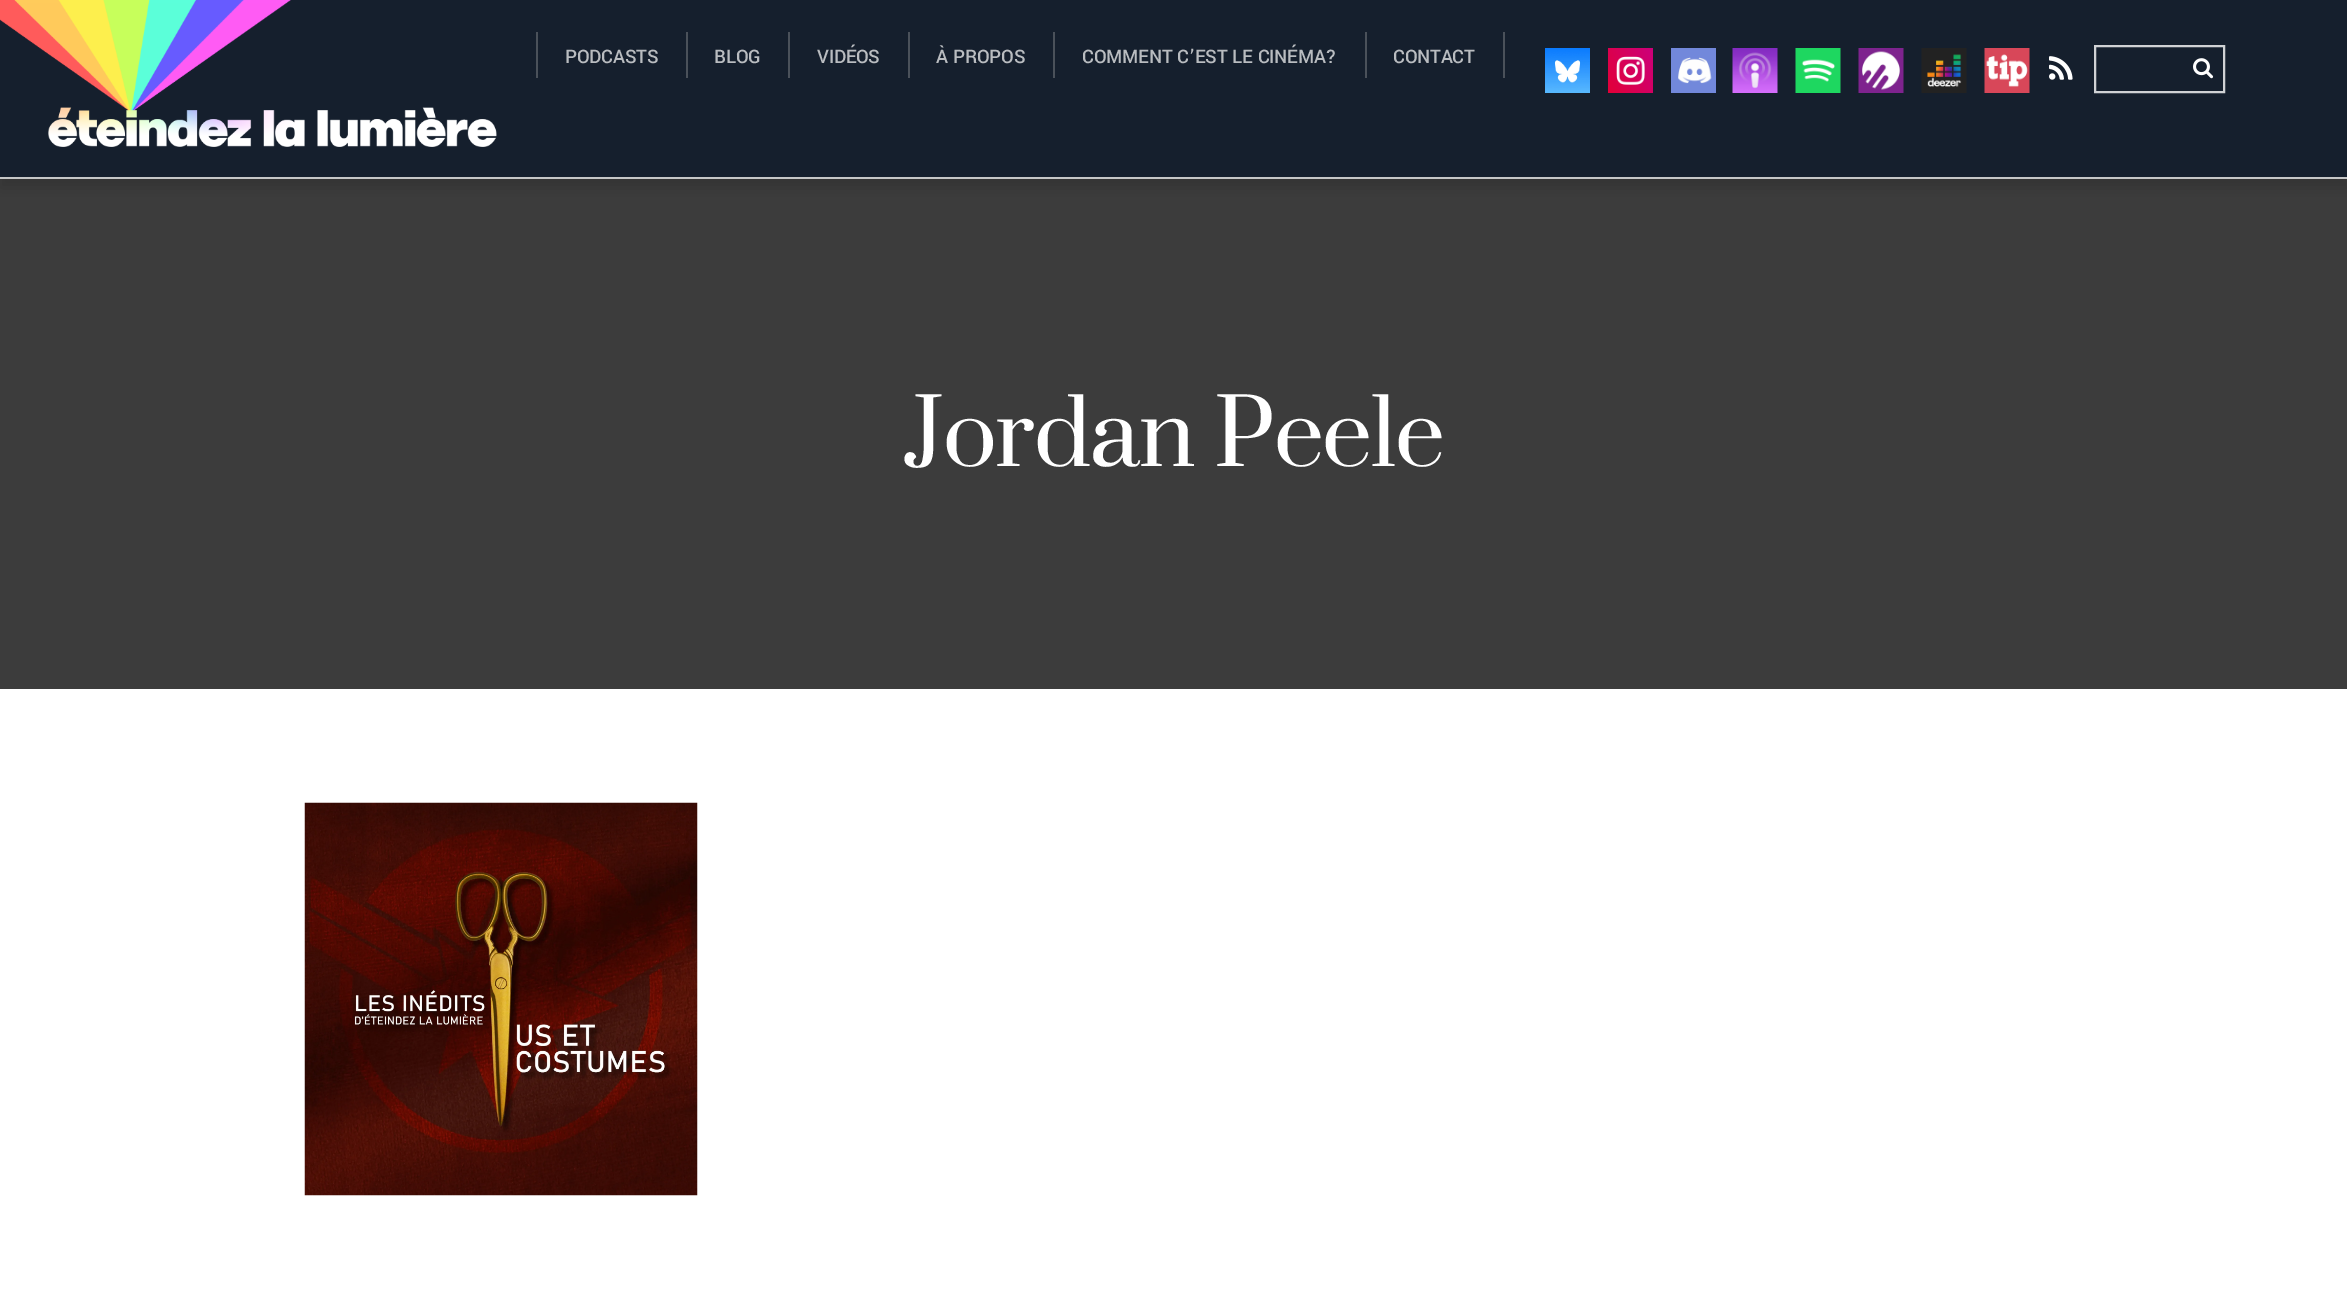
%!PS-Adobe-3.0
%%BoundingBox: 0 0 2347 1314
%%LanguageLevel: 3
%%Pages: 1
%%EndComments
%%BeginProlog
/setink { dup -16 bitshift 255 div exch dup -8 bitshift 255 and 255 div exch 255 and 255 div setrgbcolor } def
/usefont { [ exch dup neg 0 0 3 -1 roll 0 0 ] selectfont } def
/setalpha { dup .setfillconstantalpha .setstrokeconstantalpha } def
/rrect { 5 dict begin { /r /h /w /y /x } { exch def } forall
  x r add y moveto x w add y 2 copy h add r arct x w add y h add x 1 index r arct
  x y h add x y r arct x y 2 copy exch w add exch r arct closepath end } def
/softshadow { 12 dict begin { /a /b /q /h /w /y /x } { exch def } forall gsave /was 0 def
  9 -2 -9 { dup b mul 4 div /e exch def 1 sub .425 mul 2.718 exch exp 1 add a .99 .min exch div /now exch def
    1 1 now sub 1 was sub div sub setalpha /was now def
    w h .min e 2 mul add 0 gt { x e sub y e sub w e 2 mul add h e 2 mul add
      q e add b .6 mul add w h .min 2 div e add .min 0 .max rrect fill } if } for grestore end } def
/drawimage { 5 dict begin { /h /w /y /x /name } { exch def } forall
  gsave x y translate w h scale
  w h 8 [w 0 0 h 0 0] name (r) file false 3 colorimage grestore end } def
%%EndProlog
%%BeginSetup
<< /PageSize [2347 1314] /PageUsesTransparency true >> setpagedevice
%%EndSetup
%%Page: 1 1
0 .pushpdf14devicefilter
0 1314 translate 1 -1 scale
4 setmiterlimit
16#FFFFFF setink
0 0 2347 1314 rectfill
16#3C3C3C setink
0 179 2347 510 rectfill
16#000000 setink
0 9 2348 179 0 7.5 0.14 softshadow
16#151F2D setink
0 0 2347 177 rectfill
16#C6C7C7 setink
0 177 2347 2 rectfill
(img1.raw) 0 0 497 147 drawimage
16#4A515A setink
536 32 2 46 rectfill
/Yantramanav-Medium 20.7 usefont
16#B9BCC0 setink
565 63 moveto -0.25 0 (PODCASTS) ashow
16#4A515A setink
686 32 2 46 rectfill
16#B9BCC0 setink
714 63 moveto -0.25 0 (BLOG) ashow
16#4A515A setink
788 32 2 46 rectfill
16#B9BCC0 setink
817 63 moveto -0.25 0 (VIDÉOS) ashow
16#4A515A setink
908 32 2 46 rectfill
16#B9BCC0 setink
936 63 moveto -0.25 0 (À PROPOS) ashow
16#4A515A setink
1053 32 2 46 rectfill
16#B9BCC0 setink
1082 63 moveto -0.25 0 (COMMENT C’EST LE CINÉMA?) ashow
16#4A515A setink
1503 32 2 46 rectfill
1365 32 2 46 rectfill
16#B9BCC0 setink
1393 63 moveto -0.25 0 (CONTACT) ashow
(img2.raw) 1545 48 45 45 drawimage
(img3.raw) 1608 48 45 45 drawimage
(img4.raw) 1671 48 45 45 drawimage
(img5.raw) 1732 48 46 45 drawimage
(img6.raw) 1795 48 46 45 drawimage
(img7.raw) 1858 48 46 45 drawimage
(img8.raw) 1921 48 46 45 drawimage
(img9.raw) 1984 48 46 45 drawimage
(img10.raw) 2049 56 24 24 drawimage
16#D0D2D5 setink
2 setlinewidth
2095 46 129 46 rectstroke
(img11.raw) 2193 58 21 21 drawimage
/Suranna-Regular 113.5 usefont
16#FFFFFF setink
904 466 moveto -1.1 0 (Jordan Peele) ashow
(img12.raw) 304 802 394 394 drawimage
.poppdf14devicefilter showpage
%%EOF
